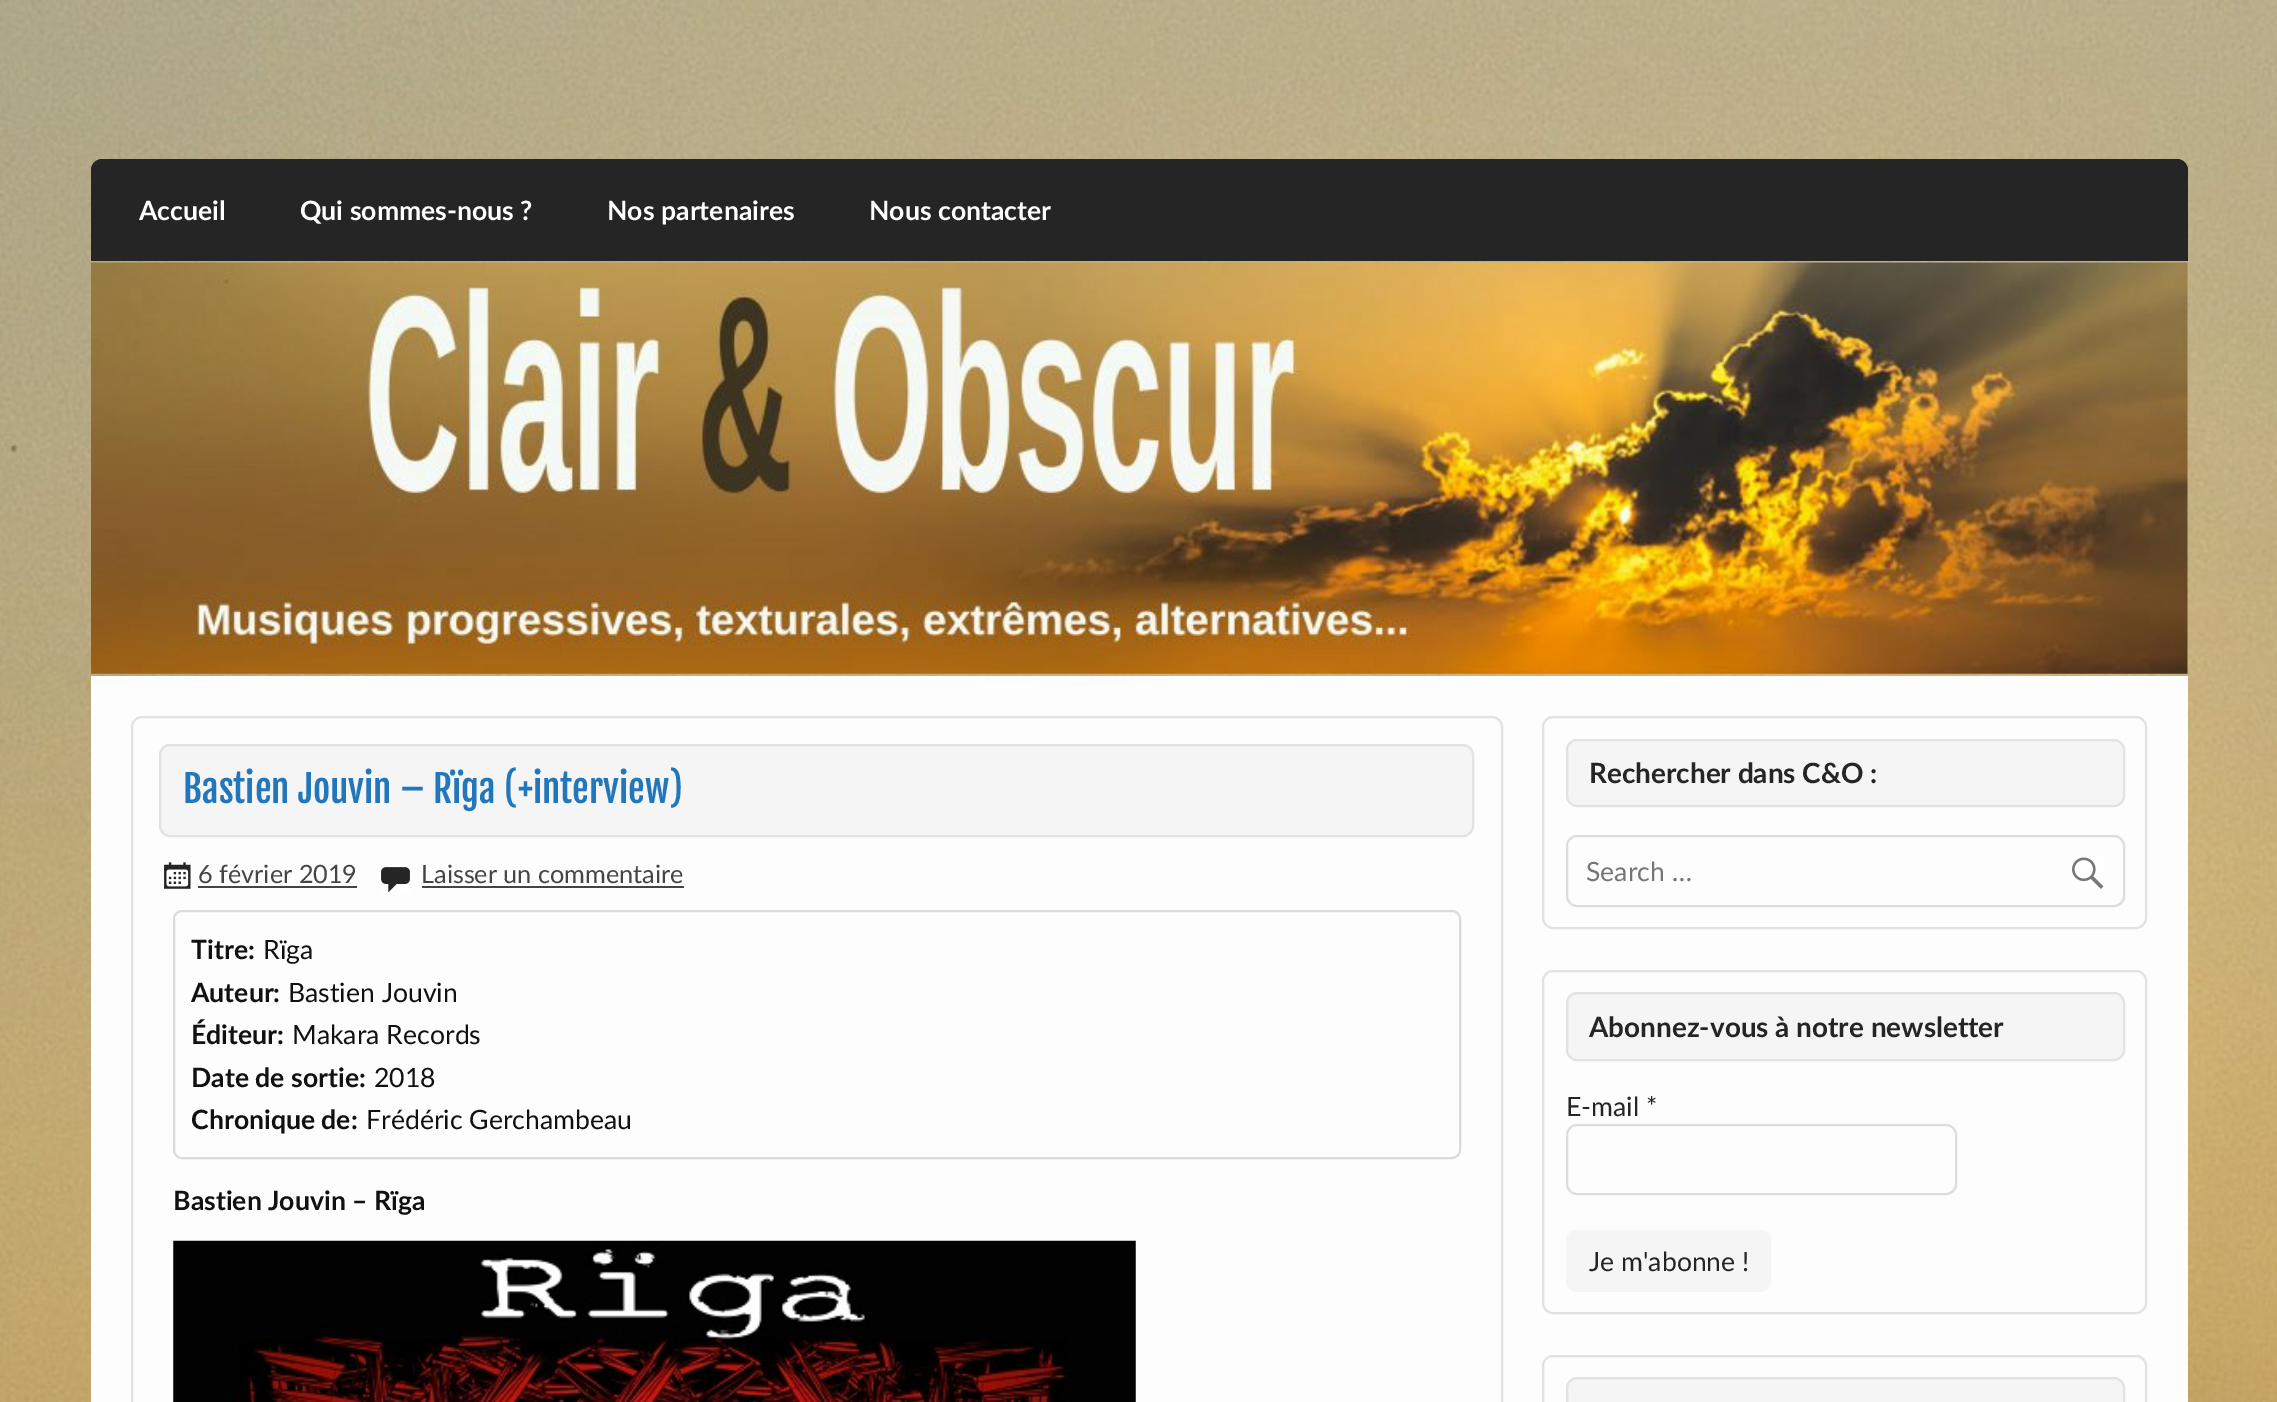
%!PS-Adobe-3.0
%%BoundingBox: 0 0 2277 1402
%%LanguageLevel: 3
%%Pages: 1
%%EndComments
%%BeginProlog
/setink { dup -16 bitshift 255 div exch dup -8 bitshift 255 and 255 div exch 255 and 255 div setrgbcolor } def
/usefont { [ exch dup neg 0 0 3 -1 roll 0 0 ] selectfont } def
/rrect { 5 dict begin { /r /h /w /y /x } { exch def } forall
  x r add y moveto x w add y 2 copy h add r arct x w add y h add x 1 index r arct
  x y h add x y r arct x y 2 copy exch w add exch r arct closepath end } def
/drawimage { 5 dict begin { /h /w /y /x /name } { exch def } forall
  gsave x y translate w h scale
  w h 8 [w 0 0 h 0 0] name (r) file false 3 colorimage grestore end } def
%%EndProlog
%%BeginSetup
<< /PageSize [2277 1402] >> setpagedevice
%%EndSetup
%%Page: 1 1
0 1402 translate 1 -1 scale
4 setmiterlimit
16#FFFFFF setink
0 0 2277 1402 rectfill
(img1.raw) 0 0 2277 1402 drawimage
16#252525 setink
102 159 moveto 2177 159 lineto 2183 159 2188 164 2188 170 curveto 2188 261 lineto 91 261 lineto 91 170 lineto 91 164 96 159 102 159 curveto closepath fill
/Lato-Bold 26.6 usefont
16#FFFFFF setink
[
    [(Accueil) 139 220]
    [(Qui sommes-nous ?) 300 220]
    [(Nos partenaires) 607 220]
    [(Nous contacter) 869 220]
] { aload pop moveto show } forall
(img2.raw) 91 262 2097 412 drawimage
16#FDFDFD setink
91 676 2097 726 rectfill
16#E2E2E2 setink
2 setlinewidth
132 717 1370 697 10 rrect stroke
16#F5F5F5 setink
160 745 1313 91 10 rrect gsave fill grestore
16#E2E2E2 setink
stroke
/FjallaOne-Regular 37.25 usefont
16#2277BB setink
183 803 moveto (Bastien Jouvin – Rïga \(+interview\)) show
(img3.raw) 164 862 27 27 drawimage
/Lato-Regular 25.25 usefont
16#444444 setink
198 883 moveto (6 février 2019) show
198 886 159 2 rectfill
(img4.raw) 381 867 29 26 drawimage
421 883 moveto (Laisser un commentaire) show
422 886 262 2 rectfill
16#DBDBDB setink
174 911 1286 247 8 rrect stroke
/Lato-Bold 26.6 usefont
16#111111 setink
191 959 moveto (Titre:) show
/Lato-Regular 26.6 usefont
263 959 moveto (Rïga) show
/Lato-Bold 26.6 usefont
191 1002 moveto (Auteur:) show
/Lato-Regular 26.6 usefont
288 1002 moveto (Bastien Jouvin) show
/Lato-Bold 26.6 usefont
191 1044 moveto (Éditeur:) show
/Lato-Regular 26.6 usefont
292 1044 moveto (Makara Records) show
/Lato-Bold 26.6 usefont
191 1087 moveto (Date de sortie:) show
/Lato-Regular 26.6 usefont
374 1087 moveto (2018) show
/Lato-Bold 26.6 usefont
191 1129 moveto (Chronique de:) show
/Lato-Regular 26.6 usefont
366 1129 moveto (Frédéric Gerchambeau) show
/Lato-Bold 26.6 usefont
173 1210 moveto (Bastien Jouvin – Rïga) show
(img5.raw) 173 1240 963 162 drawimage
16#E2E2E2 setink
1543 717 603 211 10 rrect stroke
16#F5F5F5 setink
1567 740 557 66 10 rrect gsave fill grestore
16#E2E2E2 setink
stroke
/Lato-Bold 27.9 usefont
16#252525 setink
1589 783 moveto (Rechercher dans C&O :) show
16#DDDDDD setink
1567 836 557 70 10 rrect stroke
/Lato-Regular 26.6 usefont
16#757575 setink
1586 881 moveto (Search …) show
(img6.raw) 2072 857 32 32 drawimage
16#E2E2E2 setink
1543 971 603 342 10 rrect stroke
16#F5F5F5 setink
1567 993 557 67 10 rrect gsave fill grestore
16#E2E2E2 setink
stroke
/Lato-Bold 27.9 usefont
16#252525 setink
1589 1037 moveto (Abonnez-vous à notre newsletter) show
/Lato-Regular 26.6 usefont
1566 1116 moveto (E-mail *) show
16#DDDDDD setink
1567 1125 389 69 10 rrect stroke
16#F5F5F5 setink
1566 1230 205 62 11 rrect fill
16#252525 setink
1589 1271 moveto (Je m'abonne !) show
16#E2E2E2 setink
1543 1356 603 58 10 rrect stroke
16#F5F5F5 setink
1567 1378 557 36 10 rrect gsave fill grestore
16#E2E2E2 setink
stroke
showpage
%%EOF
